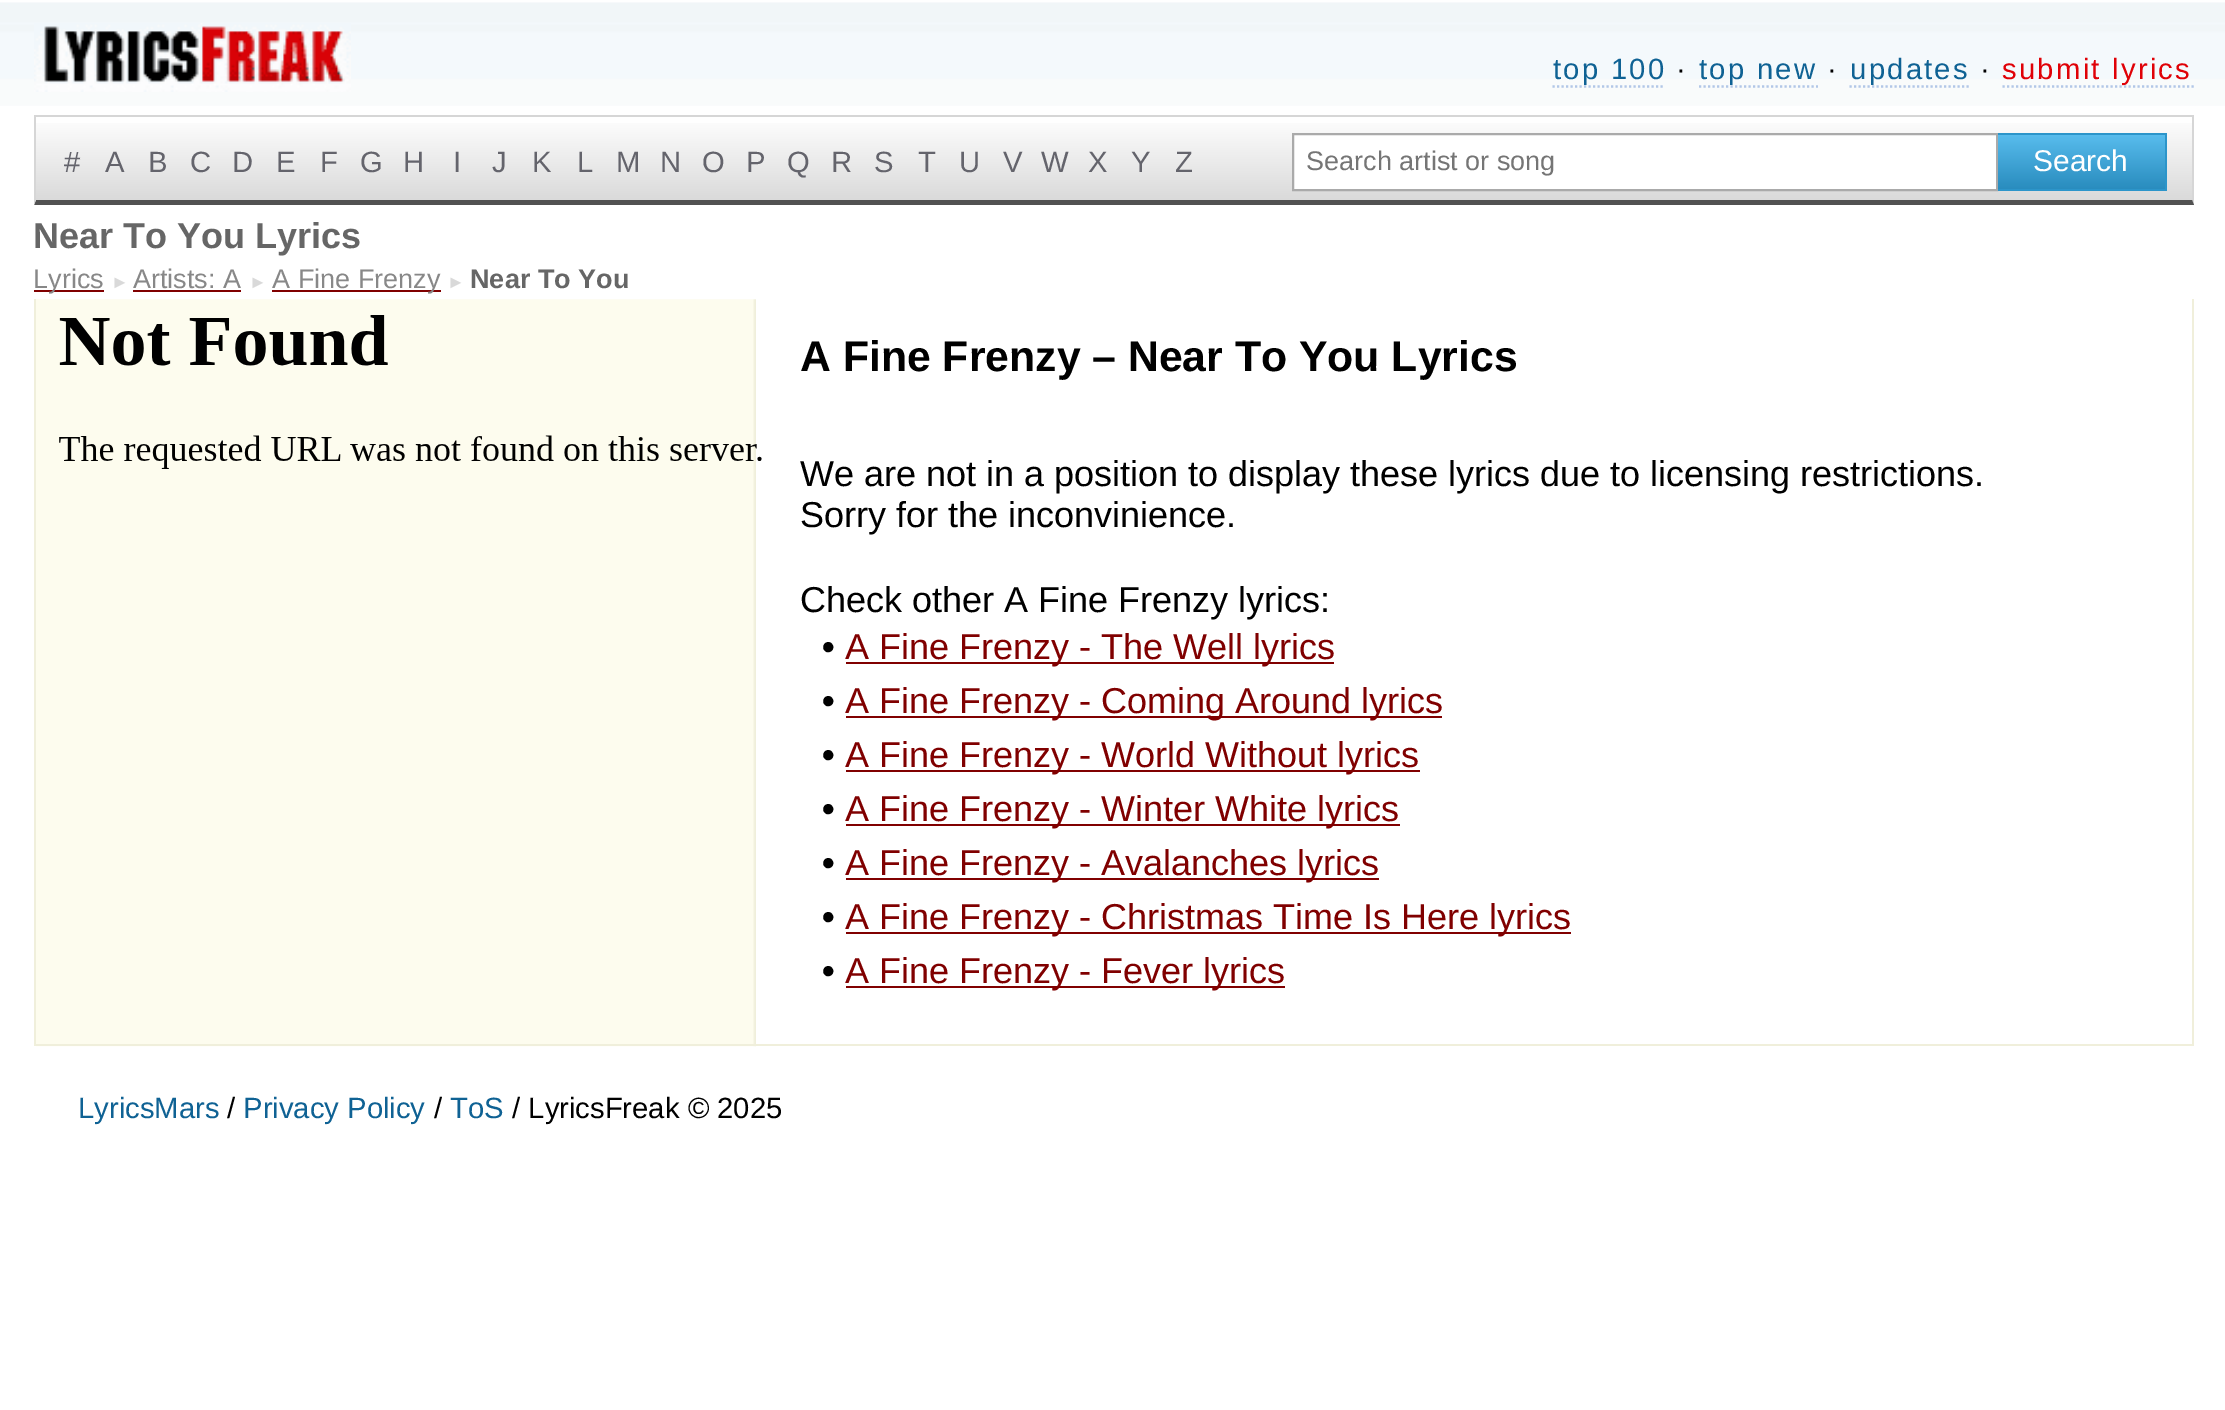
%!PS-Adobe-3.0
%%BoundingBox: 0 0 2225 1410
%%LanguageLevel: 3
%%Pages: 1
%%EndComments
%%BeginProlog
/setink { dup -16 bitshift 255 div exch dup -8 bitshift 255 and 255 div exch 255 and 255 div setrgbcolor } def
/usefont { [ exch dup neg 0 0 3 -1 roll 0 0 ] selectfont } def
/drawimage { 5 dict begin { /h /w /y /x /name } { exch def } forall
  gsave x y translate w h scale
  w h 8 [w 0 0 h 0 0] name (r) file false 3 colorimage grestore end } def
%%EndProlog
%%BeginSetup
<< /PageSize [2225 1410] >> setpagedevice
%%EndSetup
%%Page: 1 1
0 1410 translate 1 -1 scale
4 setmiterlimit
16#FFFFFF setink
0 0 2225 1410 rectfill
(img1.raw) 0 2 2225 104 drawimage
(img2.raw) 34 23 317 69 drawimage
16#B2C7E7 setink
2.2 setlinewidth
[2.25 2.25] 0 setdash
1552.5 86.5 moveto 1665 86.5 lineto stroke
/LiberationSans-Regular 29.25 usefont
16#0F6294 setink
1553 79 moveto 2.25 0 (top 100) ashow
16#000000 setink
1676 79 moveto 2.25 0 (·) ashow
16#B2C7E7 setink
1699 86.5 moveto 1818 86.5 lineto stroke
16#0F6294 setink
1699 79 moveto 2.25 0 (top new) ashow
16#000000 setink
1827 79 moveto 2.25 0 (·) ashow
16#B2C7E7 setink
1849.5 86.5 moveto 1969 86.5 lineto stroke
16#0F6294 setink
1850 79 moveto 2.25 0 (updates) ashow
16#000000 setink
1980 79 moveto 2.25 0 (·) ashow
16#B2C7E7 setink
2002.5 86.5 moveto 2194 86.5 lineto stroke
16#E00107 setink
2002 79 moveto 2.25 0 (submit lyrics) ashow
gsave 36 123 moveto 2192 123 lineto 2192 200 lineto 36 200 lineto closepath clip newpath
<< /ShadingType 2 /ColorSpace /DeviceRGB /Coords [1114 117 1114 200] /Extend [true true] /Function << /FunctionType 2 /Domain [0 1] /C0 [1 1 1] /C1 [0.855 0.855 0.855] /N 1 >> >> shfill grestore
16#D6D6D6 setink
34 115 2160 2 rectfill
2194 115 moveto 2194 205 lineto 2192 200 lineto 2192 117 lineto closepath fill
16#525252 setink
2194 205 moveto 34 205 lineto 36 200 lineto 2192 200 lineto closepath fill
16#D6D6D6 setink
34 205 moveto 34 115 lineto 36 117 lineto 36 200 lineto closepath fill
16#64646C setink
[
    [(#) 64 172]
    [(A) 105 172]
    [(B) 148 172]
    [(C) 190 172]
    [(D) 232 172]
    [(E) 276 172]
    [(F) 320 172]
    [(G) 360 172]
    [(H) 403 172]
    [(I) 453 172]
    [(J) 492 172]
    [(K) 532 172]
    [(L) 577 172]
    [(M) 616 172]
    [(N) 660 172]
    [(O) 702 172]
    [(P) 746 172]
    [(Q) 787 172]
    [(R) 831 172]
    [(S) 874 172]
    [(T) 918 172]
    [(U) 959 172]
    [(V) 1003 172]
    [(W) 1041 172]
    [(X) 1088 172]
    [(Y) 1131 172]
    [(Z) 1175 172]
] { aload pop moveto show } forall
16#FFFFFF setink
1293 134 moveto 1997 134 lineto 1997 190 lineto 1293 190 lineto closepath gsave fill grestore
16#AAAAAA setink
2 setlinewidth
[] 0 setdash
stroke
/LiberationSans-Regular 27 usefont
16#757575 setink
1306 170 moveto (Search artist or song) show
gsave 1998 135 moveto 2165 135 lineto 2165 189 lineto 1998 189 lineto closepath clip newpath
<< /ShadingType 2 /ColorSpace /DeviceRGB /Coords [2081 135 2081 189] /Extend [true true] /Function << /FunctionType 2 /Domain [0 1] /C0 [0.345 0.737 0.929] /C1 [0.161 0.549 0.745] /N 1 >> >> shfill grestore
[
    [1998 133 169 2 16#2C95CA]
    [2165 133 2 58 16#2C95CA]
    [1998 189 169 2 16#2C95CA]
] { aload pop setink rectfill } forall
/LiberationSans-Regular 30 usefont
16#FFFFFF setink
2033 171 moveto (Search) show
/LiberationSans-Bold 36 usefont
16#666666 setink
33 248 moveto (Near To You Lyrics) show
16#800000 setink
34 290 70 2 rectfill
/LiberationSans-Regular 27 usefont
16#888888 setink
33 288 moveto (Lyrics) show
/LiberationSans-Regular 18 usefont
16#D9D9D9 setink
111 288 moveto (►) show
/LiberationSans-Regular 27 usefont
16#888888 setink
133 288 moveto (Artists: A) show
16#800000 setink
133 290 108 2 rectfill
/LiberationSans-Regular 18 usefont
16#D9D9D9 setink
249 288 moveto (►) show
16#800000 setink
272 290 169 2 rectfill
/LiberationSans-Regular 27 usefont
16#888888 setink
272 288 moveto (A Fine Frenzy) show
/LiberationSans-Regular 18 usefont
16#D9D9D9 setink
447 288 moveto (►) show
/LiberationSans-Bold 27 usefont
16#666666 setink
470 288 moveto (Near To You) show
(img3.raw) 36 299 720 748 drawimage
[
    [2192 299 2 747 16#F0EFDB]
    [34 1044 2160 2 16#F0EFDB]
    [34 299 2 747 16#F0EFDB]
] { aload pop setink rectfill } forall
(img4.raw) 59 315 703 154 drawimage
/LiberationSans-Bold 42.75 usefont
16#000000 setink
800 371 moveto (A Fine Frenzy – Near To You Lyrics) show
/LiberationSans-Regular 36 usefont
[
    [(We are not in a position to display these lyrics due to licensing restrictions.) 800 486]
    [(Sorry for the inconvinience.) 800 527]
    [(Check other A Fine Frenzy lyrics:) 800 612]
] { aload pop moveto show } forall
/LiberationSans-Bold 36 usefont
822 659 moveto (•) show
16#800000 setink
846 662 488 2 rectfill
/LiberationSans-Regular 36 usefont
845 659 moveto (A Fine Frenzy - The Well lyrics) show
/LiberationSans-Bold 36 usefont
16#000000 setink
822 713 moveto (•) show
16#800000 setink
846 716 596 2 rectfill
/LiberationSans-Regular 36 usefont
845 713 moveto (A Fine Frenzy - Coming Around lyrics) show
/LiberationSans-Bold 36 usefont
16#000000 setink
822 767 moveto (•) show
16#800000 setink
846 770 574 2 rectfill
/LiberationSans-Regular 36 usefont
845 767 moveto (A Fine Frenzy - World Without lyrics) show
/LiberationSans-Bold 36 usefont
16#000000 setink
822 821 moveto (•) show
16#800000 setink
846 824 554 2 rectfill
/LiberationSans-Regular 36 usefont
845 821 moveto (A Fine Frenzy - Winter White lyrics) show
/LiberationSans-Bold 36 usefont
16#000000 setink
822 875 moveto (•) show
16#800000 setink
846 878 533 2 rectfill
/LiberationSans-Regular 36 usefont
845 875 moveto (A Fine Frenzy - Avalanches lyrics) show
/LiberationSans-Bold 36 usefont
16#000000 setink
822 929 moveto (•) show
16#800000 setink
846 932 725 2 rectfill
/LiberationSans-Regular 36 usefont
845 929 moveto (A Fine Frenzy - Christmas Time Is Here lyrics) show
/LiberationSans-Bold 36 usefont
16#000000 setink
822 983 moveto (•) show
16#800000 setink
846 986 439 2 rectfill
/LiberationSans-Regular 36 usefont
845 983 moveto (A Fine Frenzy - Fever lyrics) show
/LiberationSans-Regular 29.25 usefont
16#0F6294 setink
78 1118 moveto (LyricsMars) show
16#000000 setink
227 1118 moveto (/) show
16#0F6294 setink
243 1118 moveto (Privacy Policy) show
16#000000 setink
434 1118 moveto (/) show
16#0F6294 setink
450 1118 moveto (ToS) show
16#000000 setink
512 1118 moveto (/ LyricsFreak © 2025) show
showpage
%%EOF
